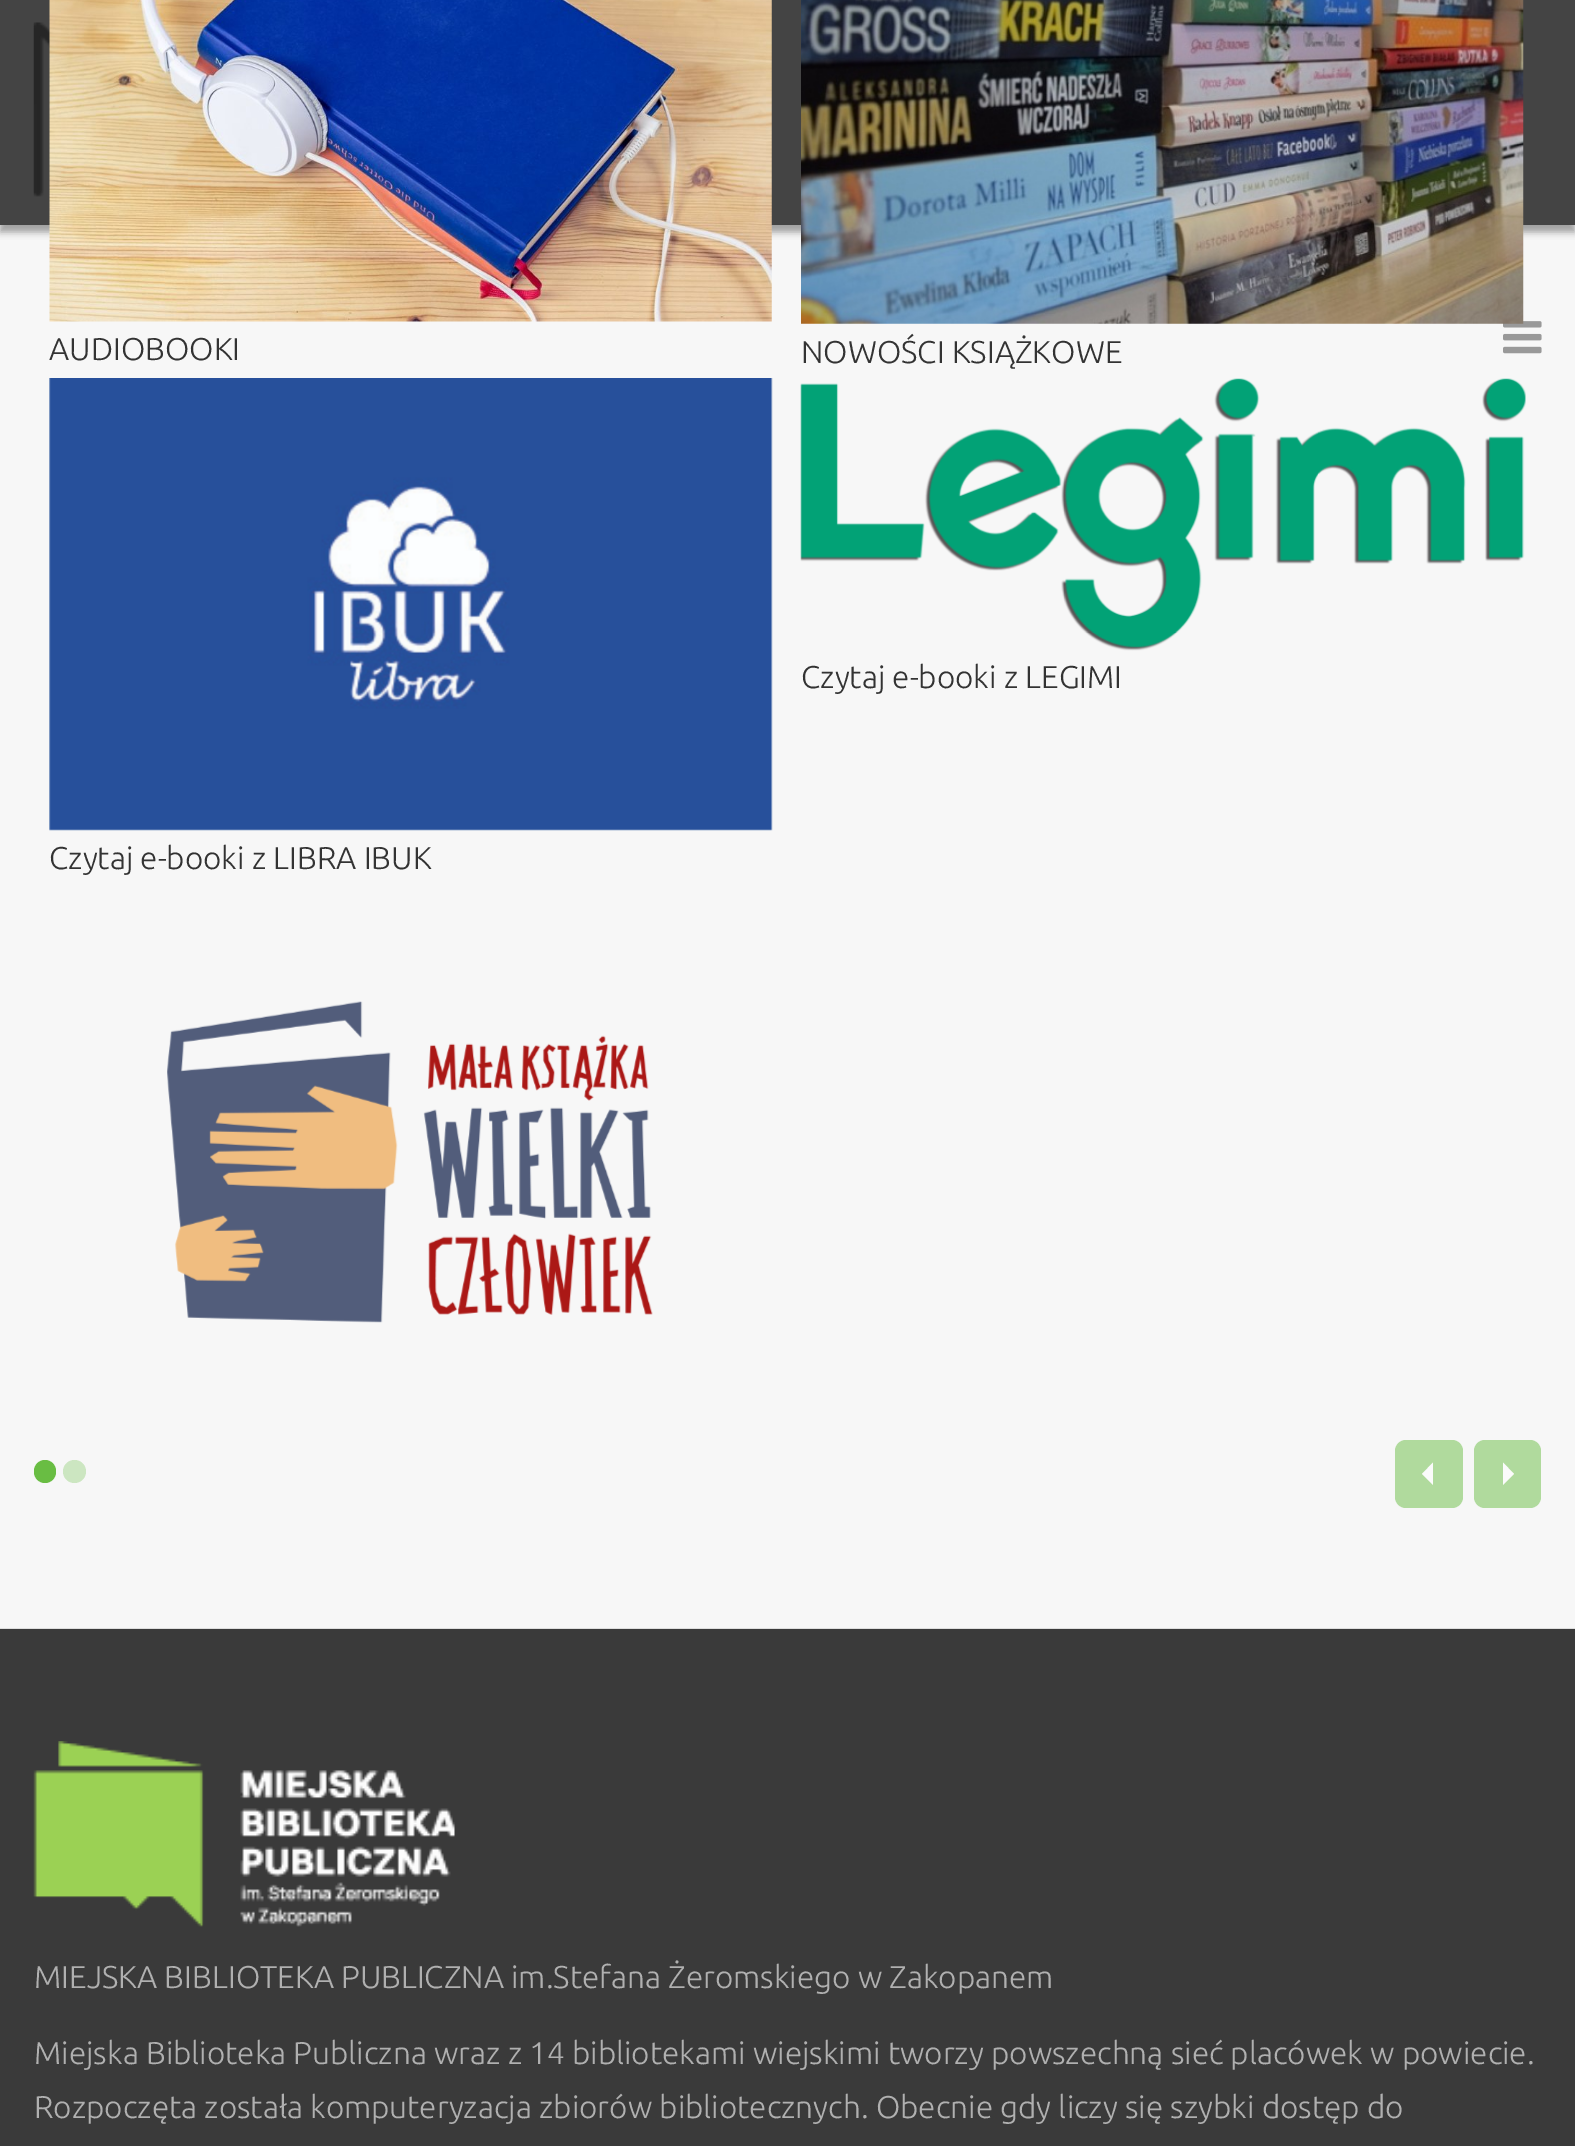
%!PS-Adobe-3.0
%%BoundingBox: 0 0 1575 2146
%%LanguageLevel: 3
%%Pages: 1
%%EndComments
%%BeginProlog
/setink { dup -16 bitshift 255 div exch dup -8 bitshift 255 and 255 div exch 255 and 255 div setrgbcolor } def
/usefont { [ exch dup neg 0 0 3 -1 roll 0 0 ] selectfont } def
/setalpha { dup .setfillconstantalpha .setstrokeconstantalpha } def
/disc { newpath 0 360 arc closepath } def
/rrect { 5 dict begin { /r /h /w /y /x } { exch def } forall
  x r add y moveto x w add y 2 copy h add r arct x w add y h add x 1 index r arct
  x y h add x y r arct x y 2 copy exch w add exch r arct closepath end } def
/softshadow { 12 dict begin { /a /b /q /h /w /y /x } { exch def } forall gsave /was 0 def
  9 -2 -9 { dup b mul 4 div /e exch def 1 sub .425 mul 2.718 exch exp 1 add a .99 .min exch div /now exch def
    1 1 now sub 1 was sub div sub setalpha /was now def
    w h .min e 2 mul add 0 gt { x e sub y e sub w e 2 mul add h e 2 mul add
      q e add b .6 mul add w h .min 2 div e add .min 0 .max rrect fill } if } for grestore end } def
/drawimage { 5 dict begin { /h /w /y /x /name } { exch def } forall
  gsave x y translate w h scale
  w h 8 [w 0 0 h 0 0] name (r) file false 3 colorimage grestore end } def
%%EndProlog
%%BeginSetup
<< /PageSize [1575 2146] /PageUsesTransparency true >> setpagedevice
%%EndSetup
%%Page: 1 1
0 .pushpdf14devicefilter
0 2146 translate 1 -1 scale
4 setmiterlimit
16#F7F7F7 setink
0 0 1575 2146 rectfill
16#000000 setink
0 7 1575 225 0 3.5 0.35 softshadow
16#444444 setink
0 0 1575 225 rectfill
(img1.raw) 33 22 17 175 drawimage
(img2.raw) 1503 321 39 33 drawimage
16#DEDEDE setink
0 1628 1575 1 rectfill
(img3.raw) 49 0 723 322 drawimage
/Ubuntu-Light 31.5 usefont
16#333333 setink
49 360 moveto (AUDIOBOOKI) show
(img4.raw) 801 0 723 324 drawimage
801 363 moveto (NOWOŚCI KSIĄŻKOWE) show
(img5.raw) 800 378 726 273 drawimage
801 688 moveto (Czytaj e-booki z LEGIMI) show
(img6.raw) 49 378 724 453 drawimage
49 869 moveto (Czytaj e-booki z LIBRA IBUK) show
(img7.raw) 167 1001 486 322 drawimage
16#69BD43 setink
34 1460 22 23 11 rrect fill
16#CCE6C1 setink
74.5 1471.5 11.5 disc fill
16#B0DA9D setink
1395 1440 68 68 11 rrect fill
16#FBFBFB setink
1433 1462.5 moveto 1433 1485 lineto 1422 1474 lineto closepath fill
16#B0DA9D setink
1474 1440 67 68 11 rrect fill
16#FBFBFB setink
1503 1485 moveto 1503 1462.5 lineto 1514 1474 lineto closepath fill
16#3A3A3A setink
0 1629 1575 517 rectfill
(img8.raw) 33 1741 422 186 drawimage
16#B0B0B0 setink
[
    [(MIEJSKA BIBLIOTEKA PUBLICZNA im.Stefana Żeromskiego w Zakopanem) 34 1988]
    [(Miejska Biblioteka Publiczna wraz z 14 bibliotekami wiejskimi tworzy powszechną sieć placówek w powiecie.) 34 2064]
    [(Rozpoczęta została komputeryzacja zbiorów bibliotecznych. Obecnie gdy liczy się szybki dostęp do) 34 2118]
] { aload pop moveto show } forall
.poppdf14devicefilter showpage
%%EOF
